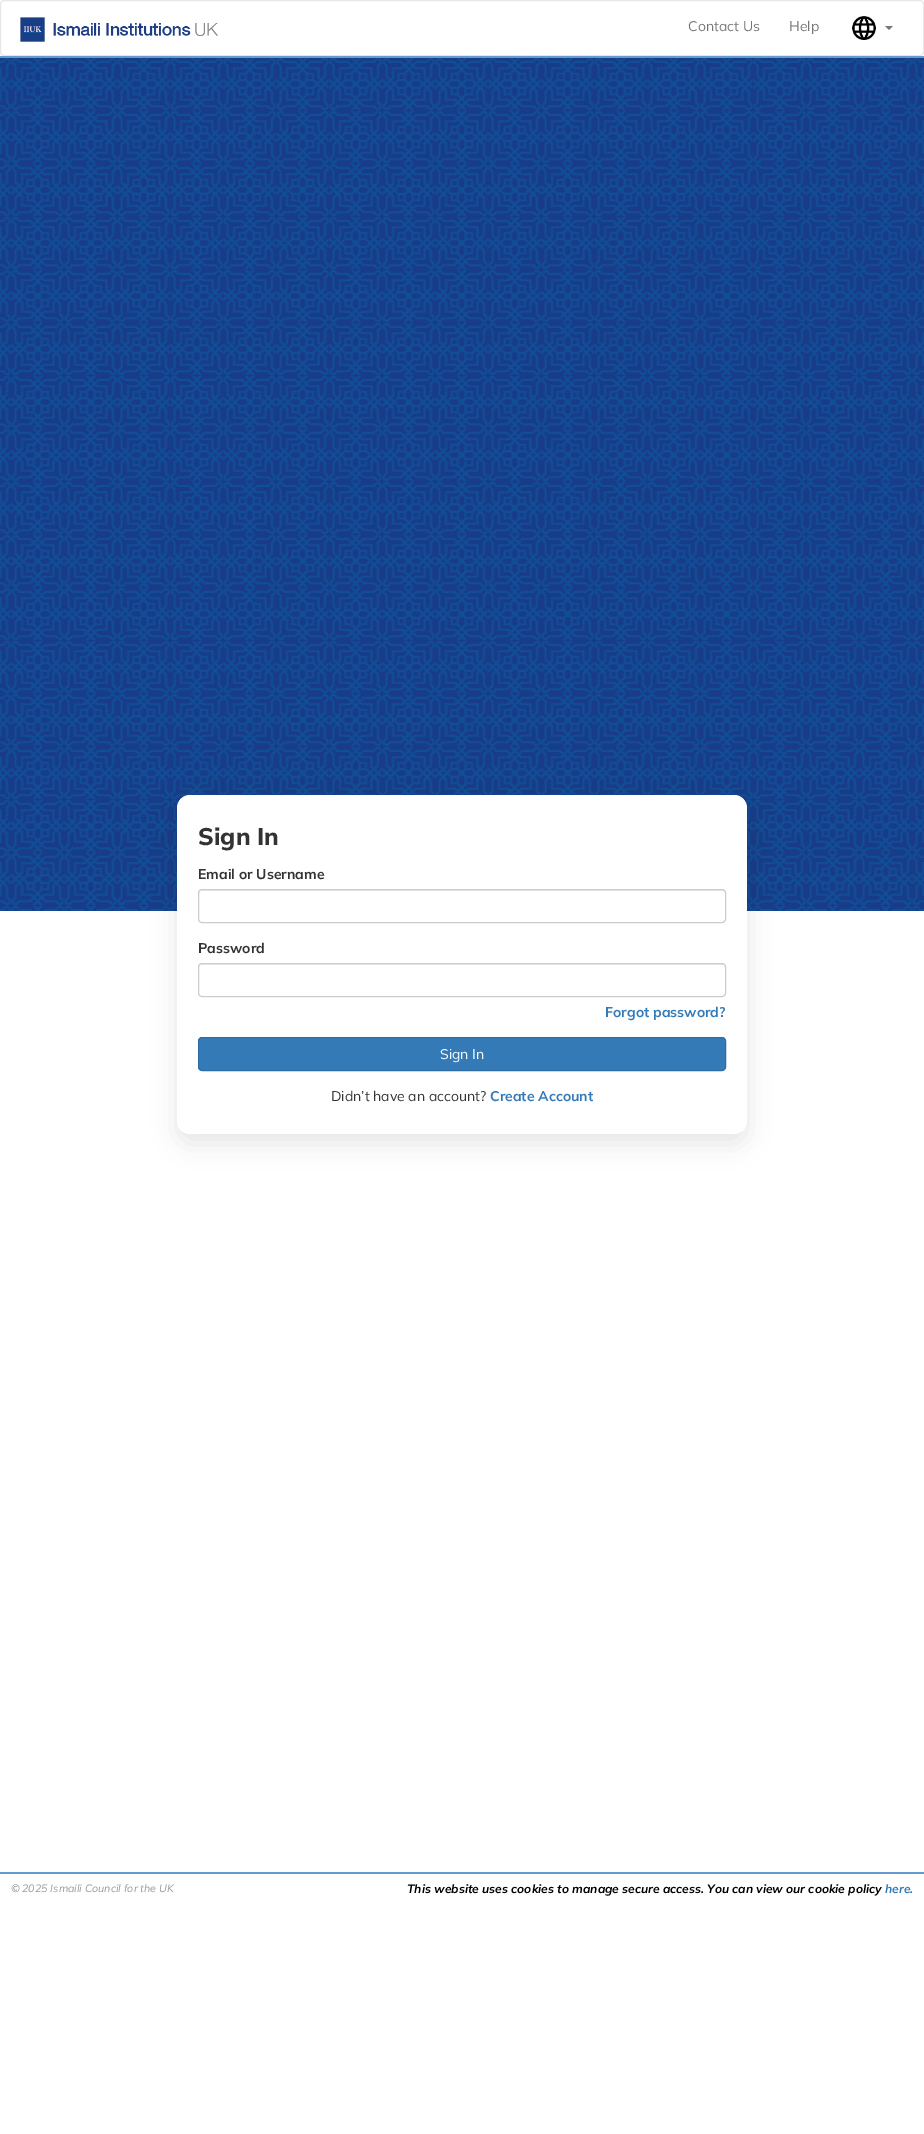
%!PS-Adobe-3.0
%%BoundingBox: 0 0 924 2134
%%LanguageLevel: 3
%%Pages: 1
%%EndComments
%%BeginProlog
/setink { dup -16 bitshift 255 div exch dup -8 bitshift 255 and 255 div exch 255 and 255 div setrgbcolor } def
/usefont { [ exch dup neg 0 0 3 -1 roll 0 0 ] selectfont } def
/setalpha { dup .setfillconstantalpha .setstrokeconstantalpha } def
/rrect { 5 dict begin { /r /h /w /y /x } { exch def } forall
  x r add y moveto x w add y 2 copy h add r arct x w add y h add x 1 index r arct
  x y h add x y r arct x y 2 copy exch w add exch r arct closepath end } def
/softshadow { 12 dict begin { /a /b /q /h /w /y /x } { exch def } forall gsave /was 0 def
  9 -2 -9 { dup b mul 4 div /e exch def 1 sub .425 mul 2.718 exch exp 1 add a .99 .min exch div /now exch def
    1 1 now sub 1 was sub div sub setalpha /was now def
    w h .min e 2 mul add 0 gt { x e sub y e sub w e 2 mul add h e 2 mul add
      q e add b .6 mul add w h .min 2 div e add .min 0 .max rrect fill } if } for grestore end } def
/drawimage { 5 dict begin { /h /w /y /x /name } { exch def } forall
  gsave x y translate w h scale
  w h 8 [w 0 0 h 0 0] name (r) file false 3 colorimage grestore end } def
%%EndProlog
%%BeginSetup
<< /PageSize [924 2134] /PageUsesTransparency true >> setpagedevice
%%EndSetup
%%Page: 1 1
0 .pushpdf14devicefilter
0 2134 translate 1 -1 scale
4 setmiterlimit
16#FFFFFF setink
0 0 924 2134 rectfill
16#E7E7E7 setink
0.5 0.5 923 55 3.5 rrect stroke
(img1.raw) 20 17 198 25 drawimage
/Mulish-Regular 14 usefont
16#777777 setink
688 31 moveto (Contact Us) show
789 31 moveto (Help) show
(img2.raw) 852 16 24 24 drawimage
885 26 moveto 893 26 lineto 889 30 lineto closepath fill
16#6699CC setink
0 56 924 2 rectfill
(img3.raw) 0 58 924 853 drawimage
16#000000 setink
177 805 570 339 13 12 0.1 softshadow
16#FFFFFF setink
177 795 570 339 13 rrect fill
/Mulish-ExtraBold 24 usefont
16#333333 setink
198 845 moveto (Sign In) show
/Mulish-Bold 14 usefont
198 879 moveto (Email or Username) show
16#ECECEC setink
202 891 moveto 722 891 lineto 724 891 725 892 725 894 curveto 724 891 lineto 722 890 lineto 202 890 lineto 200 890 199 892 199 894 curveto 199 892 200 891 202 891 curveto closepath fill
16#CCCCCC setink
198.5 889.5 527 33 3.5 rrect stroke
16#333333 setink
198 953 moveto (Password) show
16#ECECEC setink
202 965 moveto 722 965 lineto 724 965 725 966 725 968 curveto 724 965 lineto 722 964 lineto 202 964 lineto 200 964 199 966 199 968 curveto 199 966 200 965 202 965 curveto closepath fill
16#CCCCCC setink
198.5 963.5 527 33 3.5 rrect stroke
16#337AB7 setink
605 1017 moveto (Forgot password?) show
198.5 1037.5 527 33 3.5 rrect gsave fill grestore
16#2E6DA4 setink
stroke
/Mulish-Regular 14 usefont
16#FFFFFF setink
440 1059 moveto (Sign In) show
16#333333 setink
331 1101 moveto (Didn’t have an account?) show
/Mulish-Bold 14 usefont
16#337AB7 setink
490 1101 moveto (Create Account) show
16#6699CC setink
0 1872 924 2 rectfill
/Mulish-Italic 10.7 usefont
16#808080 setink
11 1892 moveto (©) show
16#999999 setink
22 1892 moveto (2025 Ismaili Council for the UK) show
/Mulish-BoldItalic 12 usefont
16#000000 setink
407 1893 moveto (This website uses cookies to manage secure access. You can view our cookie policy) show
16#337AB7 setink
885 1893 moveto (here.) show
.poppdf14devicefilter showpage
%%EOF
